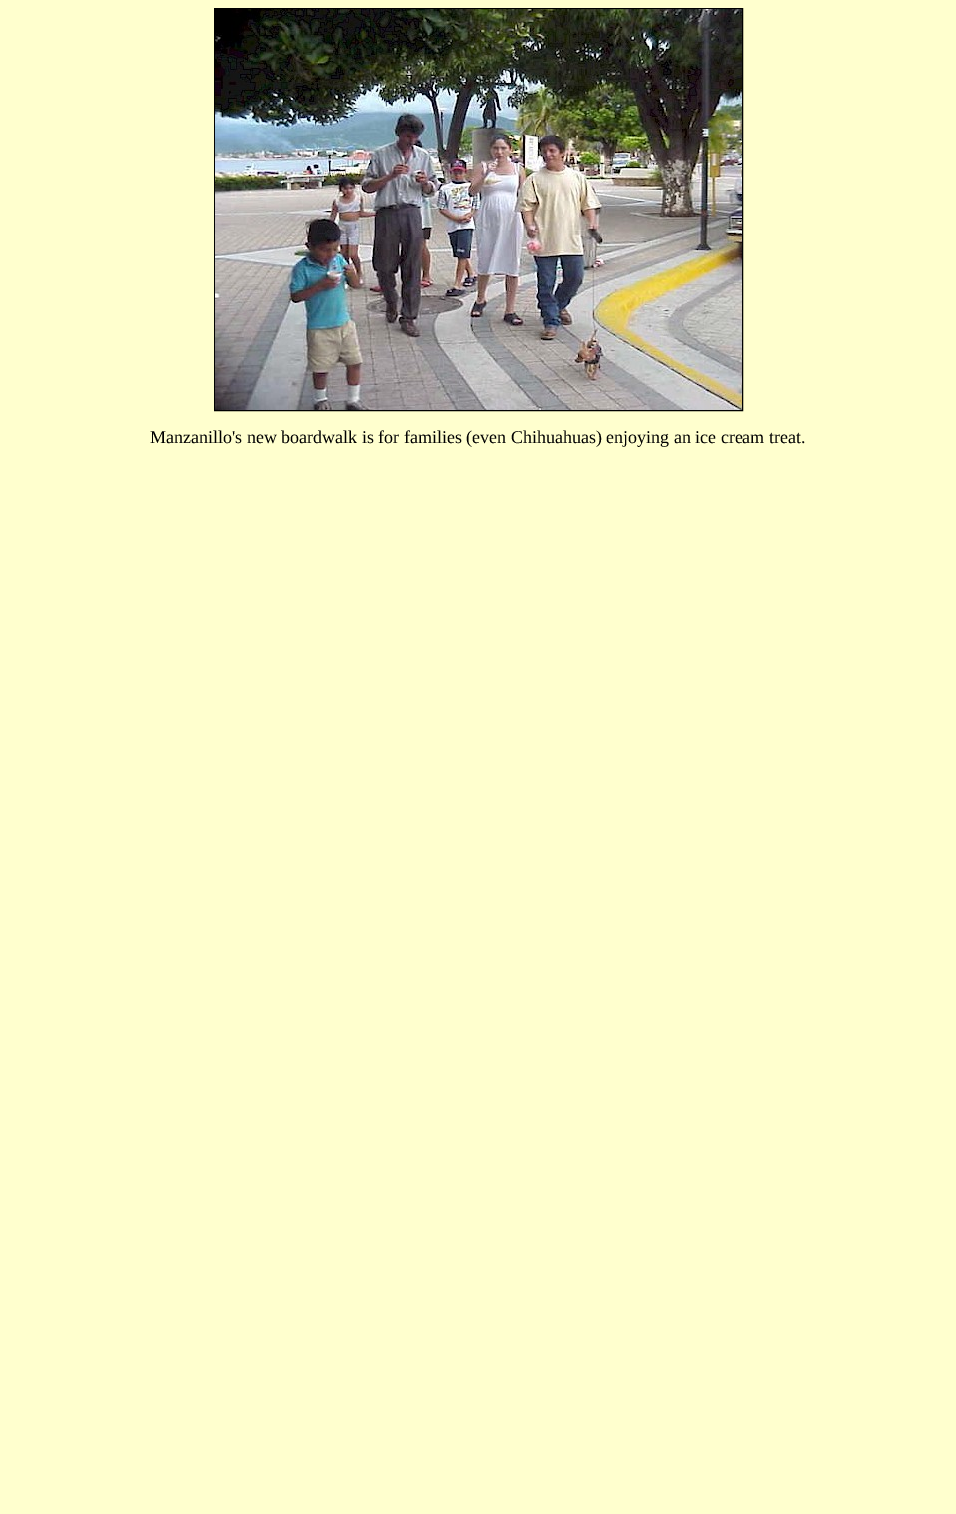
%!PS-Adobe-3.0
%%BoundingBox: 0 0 956 1514
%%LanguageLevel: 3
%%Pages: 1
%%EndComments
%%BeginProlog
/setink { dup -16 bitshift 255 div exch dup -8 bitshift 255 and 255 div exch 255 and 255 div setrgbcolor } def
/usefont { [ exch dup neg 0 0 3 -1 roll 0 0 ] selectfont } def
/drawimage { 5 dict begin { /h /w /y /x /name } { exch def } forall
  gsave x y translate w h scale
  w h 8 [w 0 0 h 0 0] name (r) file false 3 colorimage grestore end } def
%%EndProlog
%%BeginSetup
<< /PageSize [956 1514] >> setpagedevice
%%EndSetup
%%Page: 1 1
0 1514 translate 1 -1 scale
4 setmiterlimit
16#FFFFCE setink
0 0 956 1514 rectfill
16#000000 setink
214.5 8.5 528 402 rectstroke
(img1.raw) 215 9 527 401 drawimage
/LiberationSerif-Regular 18 usefont
150 443 moveto (Manzanillo's new boardwalk is for families \(even Chihuahuas\) enjoying an ice cream treat.) show
showpage
%%EOF
